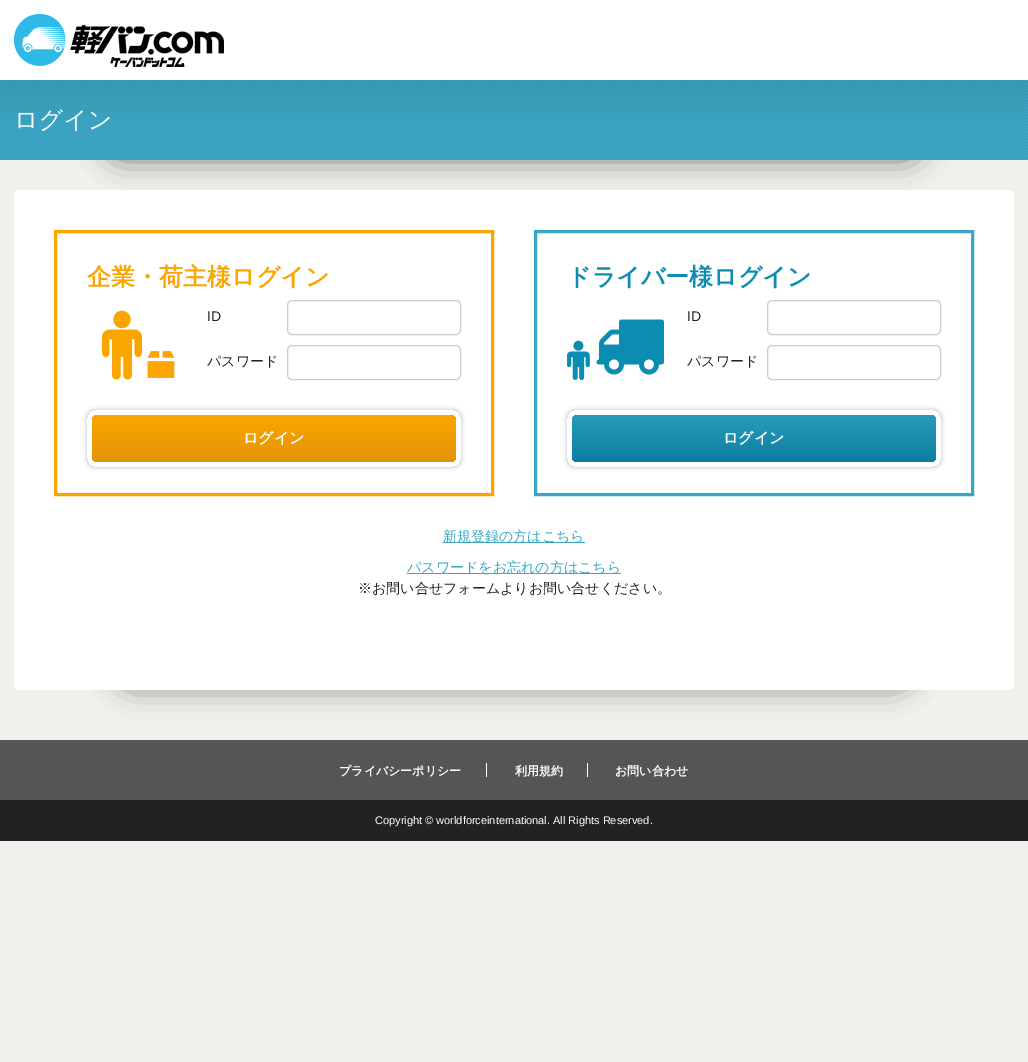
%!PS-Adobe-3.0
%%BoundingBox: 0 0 1028 1062
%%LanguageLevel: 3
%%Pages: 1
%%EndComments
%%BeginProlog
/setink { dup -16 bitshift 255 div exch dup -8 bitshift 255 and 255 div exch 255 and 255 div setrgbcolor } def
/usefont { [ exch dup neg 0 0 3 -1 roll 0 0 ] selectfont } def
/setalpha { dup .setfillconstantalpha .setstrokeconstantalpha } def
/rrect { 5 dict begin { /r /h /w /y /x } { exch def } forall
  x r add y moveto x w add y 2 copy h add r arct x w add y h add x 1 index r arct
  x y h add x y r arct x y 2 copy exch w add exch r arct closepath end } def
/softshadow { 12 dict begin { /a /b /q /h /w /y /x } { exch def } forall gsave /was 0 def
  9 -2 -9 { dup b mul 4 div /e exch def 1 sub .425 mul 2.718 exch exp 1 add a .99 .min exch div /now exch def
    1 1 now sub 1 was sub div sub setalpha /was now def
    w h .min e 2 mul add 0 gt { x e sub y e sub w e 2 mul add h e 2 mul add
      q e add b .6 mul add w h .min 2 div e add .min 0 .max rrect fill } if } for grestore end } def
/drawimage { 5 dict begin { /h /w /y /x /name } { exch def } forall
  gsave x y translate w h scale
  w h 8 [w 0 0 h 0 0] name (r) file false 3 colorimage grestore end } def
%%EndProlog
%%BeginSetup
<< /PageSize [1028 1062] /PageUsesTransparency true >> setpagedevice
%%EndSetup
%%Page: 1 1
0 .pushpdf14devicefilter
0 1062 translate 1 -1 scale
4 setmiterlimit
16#F1F0EB setink
0 0 1028 1062 rectfill
16#FFFFFF setink
0 0 1028 80 rectfill
(img1.raw) 14 14 210 53 drawimage
gsave
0 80 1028 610 rectclip
16#050505 setink
103 100 822 60 30 15 0.5 softshadow
grestore
gsave 0 80 moveto 1028 80 lineto 1028 160 lineto 0 160 lineto closepath clip newpath
<< /ShadingType 2 /ColorSpace /DeviceRGB /Coords [514 80 514 160] /Extend [true true] /Function << /FunctionType 3 /Domain [0 1] /Functions [<< /FunctionType 2 /Domain [0 1] /C0 [0.22 0.612 0.714] /C1 [0.231 0.651 0.773] /N 1 >> << /FunctionType 2 /Domain [0 1] /C0 [0.231 0.651 0.773] /C1 [0.231 0.651 0.773] /N 1 >>] /Bounds [0.54] /Encode [0 1 0 1] >> >> shfill grestore
/WenQuanYiZenHei-Medium 24 usefont
14 128 moveto (ログイン) show
(img2.raw) 0 80 1028 80 drawimage
16#050505 setink
114 626 800 60 30 15 0.5 softshadow
16#FFFFFF setink
14 190 1000 500 5 rrect fill
16#FBA501 setink
3 setlinewidth
55.5 231.5 437 263 rectstroke
/WenQuanYiZenHei-Bold 24 usefont
87 285 moveto (企業・荷主様ログイン) show
(img3.raw) 102 310 40 70 drawimage
/LiberationSans-Regular 14 usefont
16#222222 setink
207 321 moveto (ID) show
16#CCCCCC setink
1 setlinewidth
287.5 300.5 173 34 4.5 rrect stroke
(img4.raw) 147 351 28 27 drawimage
/WenQuanYiZenHei-Medium 14 usefont
16#222222 setink
207 366 moveto (パスワード) show
16#CCCCCC setink
287.5 345.5 173 34 4.5 rrect stroke
gsave
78 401 moveto 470 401 lineto 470 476 lineto 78 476 lineto closepath 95 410 moveto 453 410 lineto 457.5 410 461 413.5 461 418 curveto 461 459 lineto 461 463.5 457.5 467 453 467 curveto 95 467 lineto 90.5 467 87 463.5 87 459 curveto 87 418 lineto 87 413.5 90.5 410 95 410 curveto closepath eoclip newpath
16#050505 setink
87 410 374 57 8 2.5 0.25 softshadow
grestore
gsave 92 415 364 47 5 rrect clip newpath
<< /ShadingType 2 /ColorSpace /DeviceRGB /Coords [274 415 274 462] /Extend [true true] /Function << /FunctionType 2 /Domain [0 1] /C0 [0.984 0.647 0.004] /C1 [0.89 0.584 0.02] /N 1 >> >> shfill grestore
/WenQuanYiZenHei-Bold 15 usefont
16#FFFFFF setink
243 443 moveto (ログイン) show
16#3BA6C5 setink
3 setlinewidth
535.5 231.5 437 263 rectstroke
/WenQuanYiZenHei-Bold 24 usefont
16#0B8CB1 setink
567 285 moveto (ドライバー様ログイン) show
/LiberationSans-Regular 14 usefont
16#222222 setink
687 321 moveto (ID) show
16#CCCCCC setink
1 setlinewidth
767.5 300.5 173 34 4.5 rrect stroke
(img5.raw) 567 340 23 40 drawimage
(img6.raw) 596 319 68 56 drawimage
/WenQuanYiZenHei-Medium 14 usefont
16#222222 setink
687 366 moveto (パスワード) show
16#CCCCCC setink
767.5 345.5 173 34 4.5 rrect stroke
gsave
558 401 moveto 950 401 lineto 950 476 lineto 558 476 lineto closepath 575 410 moveto 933 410 lineto 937.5 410 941 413.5 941 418 curveto 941 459 lineto 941 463.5 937.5 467 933 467 curveto 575 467 lineto 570.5 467 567 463.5 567 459 curveto 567 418 lineto 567 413.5 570.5 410 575 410 curveto closepath eoclip newpath
16#050505 setink
567 410 374 57 8 2.5 0.25 softshadow
grestore
gsave 572 415 364 47 5 rrect clip newpath
<< /ShadingType 2 /ColorSpace /DeviceRGB /Coords [754 415 754 462] /Extend [true true] /Function << /FunctionType 2 /Domain [0 1] /C0 [0.173 0.608 0.733] /C1 [0.039 0.494 0.627] /N 1 >> >> shfill grestore
/WenQuanYiZenHei-Bold 15 usefont
16#FFFFFF setink
723 443 moveto (ログイン) show
16#3BA6C5 setink
443 542 142 1 rectfill
/WenQuanYiZenHei-Medium 14 usefont
443 541 moveto (新規登録の方はこちら) show
407 573 214 1 rectfill
407 572 moveto (パスワードをお忘れの方はこちら) show
16#222222 setink
358 593 moveto (※お問い合せフォームよりお問い合せください。) show
[
    [0 800 1028 41 16#222222]
    [0 740 1028 60 16#555555]
    [486 763 1 14 16#FFFFFF]
] { aload pop setink rectfill } forall
/WenQuanYiZenHei-Bold 12 usefont
339 775 moveto (プライバシーポリシー) show
587 763 1 14 rectfill
515 775 moveto (利用規約) show
615 775 moveto (お問い合わせ) show
/LiberationSans-Regular 11 usefont
375 824 moveto (Copyright © worldforceinternational. All Rights Reserved.) show
.poppdf14devicefilter showpage
%%EOF
